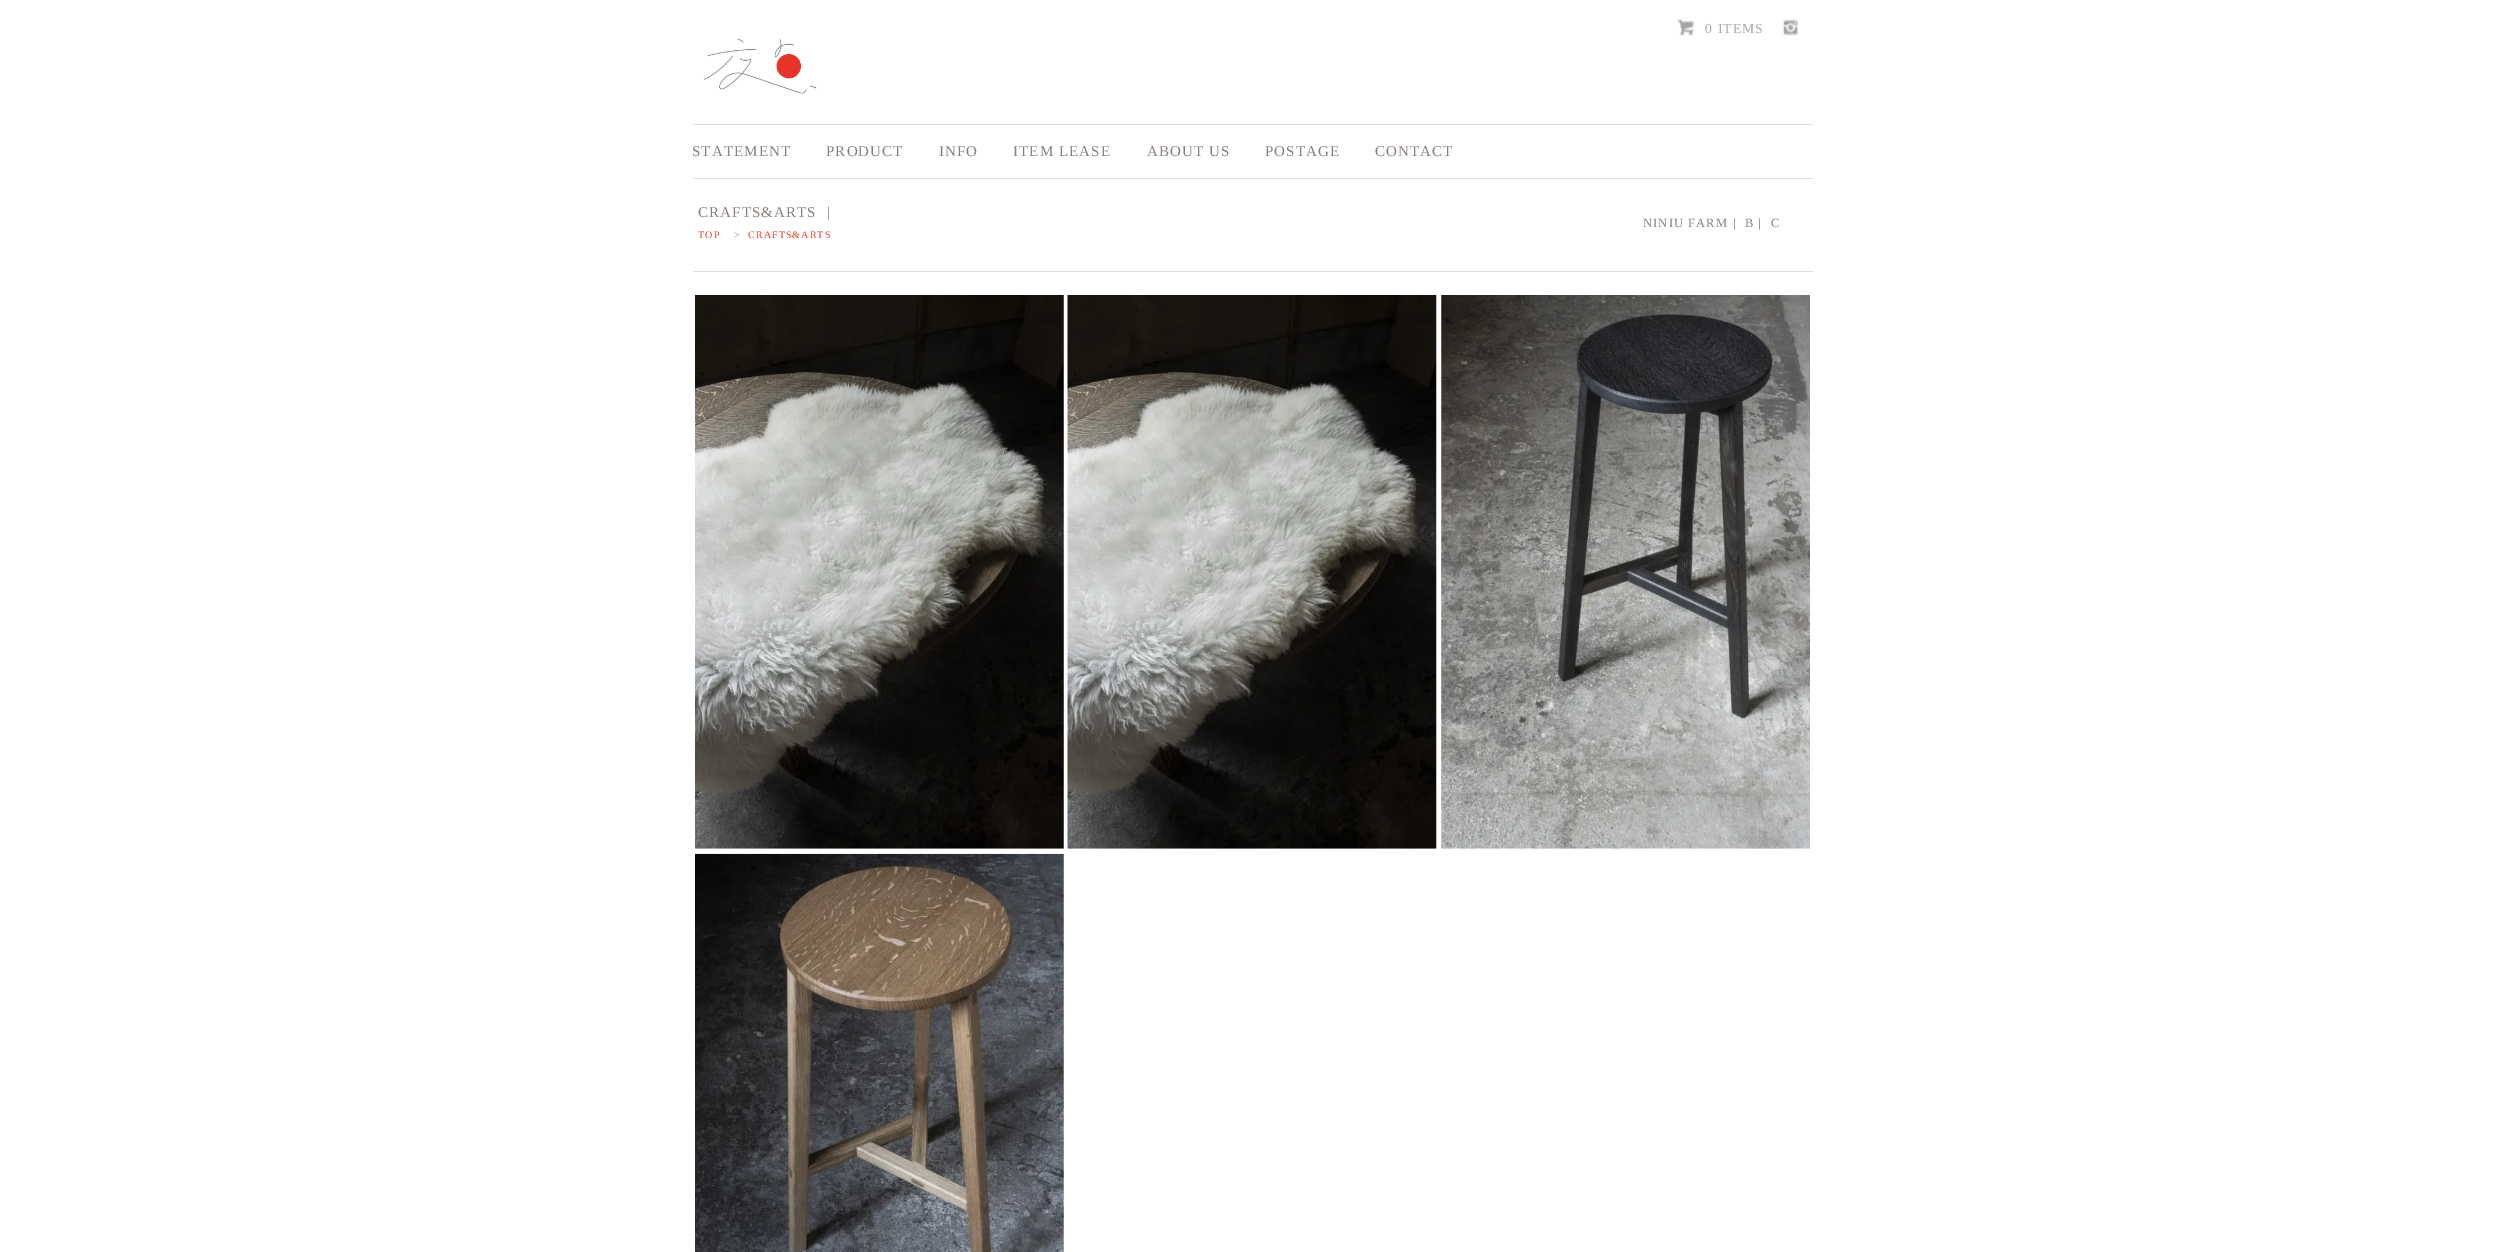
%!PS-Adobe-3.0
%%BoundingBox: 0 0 2504 1252
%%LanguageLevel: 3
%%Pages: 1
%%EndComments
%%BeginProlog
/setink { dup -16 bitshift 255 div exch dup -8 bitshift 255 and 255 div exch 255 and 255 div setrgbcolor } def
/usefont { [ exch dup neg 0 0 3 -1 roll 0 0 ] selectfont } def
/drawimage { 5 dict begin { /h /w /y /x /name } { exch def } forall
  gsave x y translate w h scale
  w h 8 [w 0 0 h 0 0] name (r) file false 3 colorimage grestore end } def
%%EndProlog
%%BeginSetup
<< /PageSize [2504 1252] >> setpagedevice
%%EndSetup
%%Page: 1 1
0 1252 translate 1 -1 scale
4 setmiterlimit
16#FFFFFF setink
0 0 2504 1252 rectfill
16#DDDDDD setink
693 178 1120 1 rectfill
(img1.raw) 1677 19 17 17 drawimage
/LiberationSerif-Regular 13.75 usefont
16#AAAAAA setink
1705 33 moveto 1.1 0 (0 ITEMS) ashow
(img2.raw) 1783 19 16 17 drawimage
(img3.raw) 703 38 114 56 drawimage
16#DDDDDD setink
693 124 1120 1 rectfill
/LiberationSerif-Regular 15 usefont
16#887F7A setink
692 156 moveto 1.1 0 (STATEMENT) ashow
826 156 moveto 1.1 0 (PRODUCT) ashow
939 156 moveto 1.1 0 (INFO) ashow
1013 156 moveto 1.1 0 (ITEM LEASE) ashow
1147 156 moveto 1.1 0 (ABOUT US) ashow
1265 156 moveto 1.1 0 (POSTAGE) ashow
1375 156 moveto 1.1 0 (CONTACT) ashow
698 217 moveto 1.1 0 (CRAFTS&ARTS) ashow
827 217 moveto 1.1 0 (|) ashow
/LiberationSerif-Regular 10 usefont
16#E83929 setink
698 238 moveto 1.1 0 (TOP) ashow
16#887F7A setink
734 238 moveto 1.1 0 (>) ashow
16#E83929 setink
748 238 moveto 1.1 0 (CRAFTS&ARTS) ashow
/LiberationSerif-Regular 12.5 usefont
16#887F7A setink
1643 227 moveto 1.1 0 (NINIU FARM) ashow
16#444444 setink
1733 227 moveto 1.1 0 (|) ashow
16#887F7A setink
1745 227 moveto 1.1 0 (B) ashow
16#444444 setink
1758 227 moveto 1.1 0 (|) ashow
16#887F7A setink
1771 227 moveto 1.1 0 (C) ashow
16#DDDDDD setink
693 271 1120 1 rectfill
(img4.raw) 695 295 369 554 drawimage
(img5.raw) 1067 295 370 554 drawimage
(img6.raw) 1441 295 369 554 drawimage
(img7.raw) 695 853 369 399 drawimage
showpage
%%EOF
